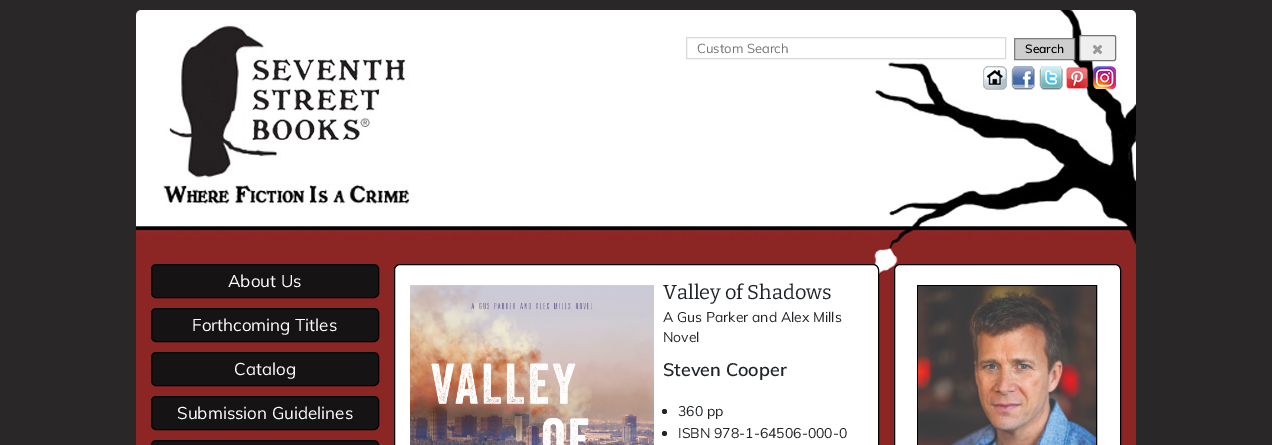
%!PS-Adobe-3.0
%%BoundingBox: 0 0 1272 445
%%LanguageLevel: 3
%%Pages: 1
%%EndComments
%%BeginProlog
/setink { dup -16 bitshift 255 div exch dup -8 bitshift 255 and 255 div exch 255 and 255 div setrgbcolor } def
/usefont { [ exch dup neg 0 0 3 -1 roll 0 0 ] selectfont } def
/disc { newpath 0 360 arc closepath } def
/rrect { 5 dict begin { /r /h /w /y /x } { exch def } forall
  x r add y moveto x w add y 2 copy h add r arct x w add y h add x 1 index r arct
  x y h add x y r arct x y 2 copy exch w add exch r arct closepath end } def
/drawimage { 5 dict begin { /h /w /y /x /name } { exch def } forall
  gsave x y translate w h scale
  w h 8 [w 0 0 h 0 0] name (r) file false 3 colorimage grestore end } def
%%EndProlog
%%BeginSetup
<< /PageSize [1272 445] >> setpagedevice
%%EndSetup
%%Page: 1 1
0 445 translate 1 -1 scale
4 setmiterlimit
16#292728 setink
0 0 1272 445 rectfill
(img1.raw) 136 10 1000 229 drawimage
(img2.raw) 163 23 253 187 drawimage
16#D9D9D9 setink
686.5 37.5 319 21 rectstroke
/Muli-Regular 13 usefont
16#757575 setink
697 53 moveto (Custom Search) show
16#CECECE setink
1014.5 38.5 moveto 1074.5 38.5 lineto 1074.5 59.5 lineto 1014.5 59.5 lineto closepath gsave fill grestore
16#7D7D7D setink
stroke
/Muli-SemiBold 12 usefont
16#000000 setink
1025 53 moveto (Search) show
16#EFEFEF setink
1079.5 35.5 36 25 1.5 rrect gsave fill grestore
16#767676 setink
stroke
(img3.raw) 1092 44 11 11 drawimage
(img4.raw) 983 66 24 24 drawimage
(img5.raw) 1011 66 24 24 drawimage
(img6.raw) 1039 66 24 24 drawimage
(img7.raw) 1066 67 22 22 drawimage
(img8.raw) 1093 66 23 23 drawimage
16#8C2624 setink
136 239 1000 206 rectfill
(img9.raw) 874 239 262 38 drawimage
16#151314 setink
151.5 264.5 227 33 4.5 rrect gsave fill grestore
16#000000 setink
stroke
/Muli-Regular 17 usefont
16#FFFFFF setink
228 287 moveto (About Us) show
16#151314 setink
151.5 308.5 227 33 4.5 rrect gsave fill grestore
16#000000 setink
stroke
16#FFFFFF setink
192 331 moveto (Forthcoming Titles) show
16#151314 setink
151.5 352.5 227 33 4.5 rrect gsave fill grestore
16#000000 setink
stroke
16#FFFFFF setink
234 375 moveto (Catalog) show
16#151314 setink
151.5 396.5 227 33 4.5 rrect gsave fill grestore
16#000000 setink
stroke
16#FFFFFF setink
177 419 moveto (Submission Guidelines) show
16#151314 setink
151.5 440.5 227 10 4.5 rrect gsave fill grestore
16#000000 setink
stroke
16#FFFFFF setink
394.5 264.5 484 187 5.5 rrect gsave fill grestore
16#000000 setink
stroke
(img10.raw) 410 285 244 160 drawimage
/Bitter-Regular 20 usefont
16#212529 setink
663 299 moveto (Valley of Shadows) show
/Muli-Regular 14 usefont
663 322 moveto (A Gus Parker and Alex Mills) show
663 342 moveto (Novel) show
/Muli-SemiBold 18 usefont
663 376 moveto (Steven Cooper) show
664.5 411.5 2.5 disc fill
/Muli-Regular 14 usefont
678 416 moveto (360 pp) show
664.5 433.5 2.5 disc fill
678 438 moveto (ISBN 978-1-64506-000-0) show
16#FFFFFF setink
894.5 264.5 226 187 5.5 rrect gsave fill grestore
16#000000 setink
stroke
917.5 285.5 179 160 rectstroke
(img11.raw) 918 286 178 159 drawimage
showpage
%%EOF
